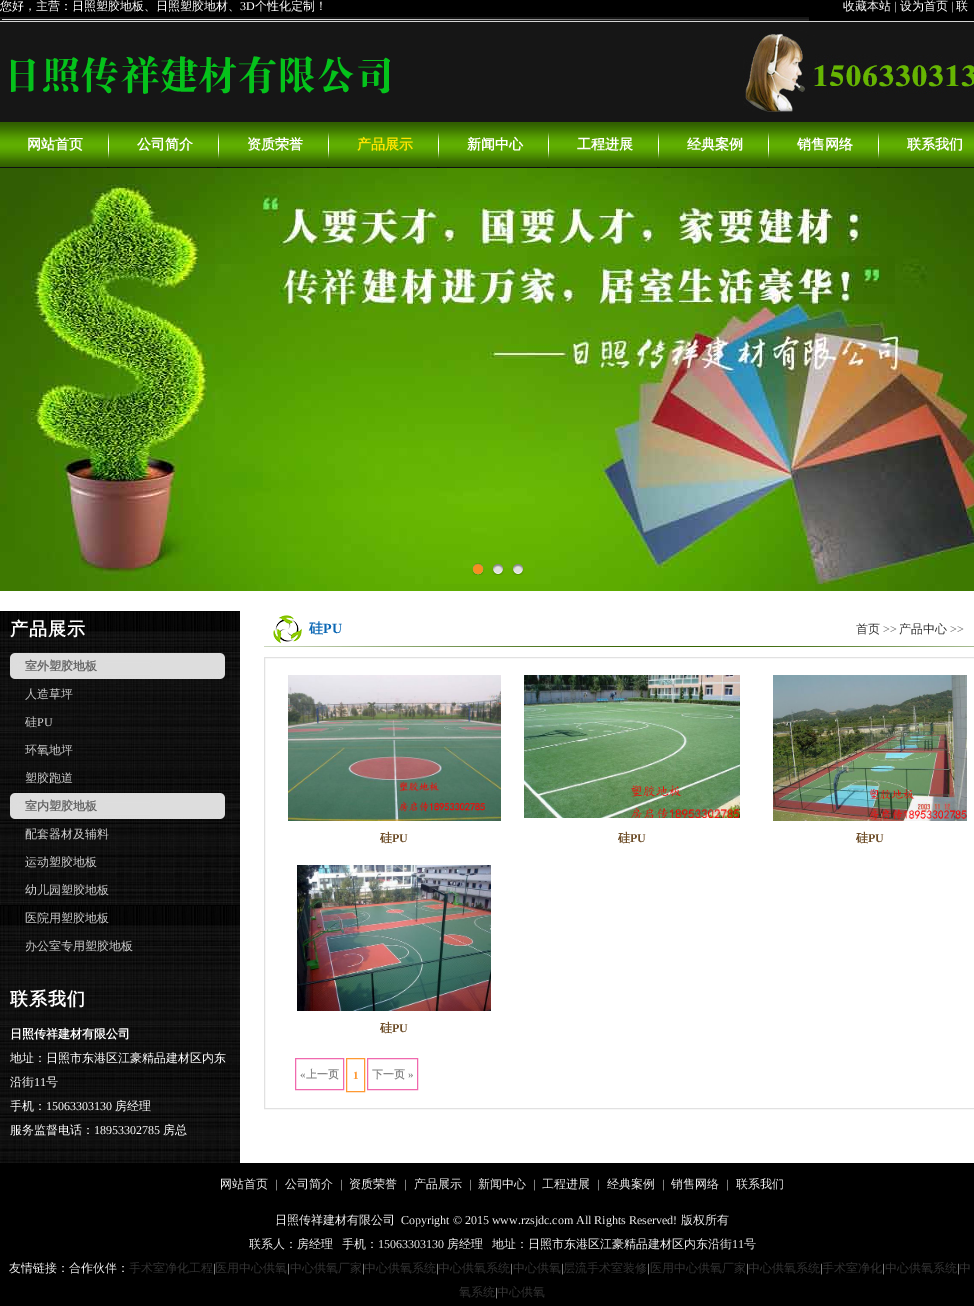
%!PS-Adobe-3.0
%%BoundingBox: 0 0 974 1306
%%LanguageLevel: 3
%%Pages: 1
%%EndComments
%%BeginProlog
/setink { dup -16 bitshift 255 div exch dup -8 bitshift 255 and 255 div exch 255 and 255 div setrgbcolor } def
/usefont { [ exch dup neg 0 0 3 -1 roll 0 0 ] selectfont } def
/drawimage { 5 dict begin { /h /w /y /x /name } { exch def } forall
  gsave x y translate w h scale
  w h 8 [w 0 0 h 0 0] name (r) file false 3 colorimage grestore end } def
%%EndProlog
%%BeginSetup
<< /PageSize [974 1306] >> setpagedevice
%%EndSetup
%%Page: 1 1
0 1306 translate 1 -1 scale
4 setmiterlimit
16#FFFFFF setink
0 0 974 1306 rectfill
16#000000 setink
0 0 974 21 rectfill
16#D5D5D5 setink
0 21 974 1 rectfill
(img1.raw) 0 17 809 4 drawimage
/WenQuanYiZenHei-Medium 12 usefont
16#FFFFFF setink
0 10 moveto (您好，主营：日照塑胶地板、日照塑胶地材、) show
/LiberationSerif-Regular 12 usefont
240 10 moveto (3D) show
/WenQuanYiZenHei-Medium 12 usefont
255 10 moveto (个性化定制！) show
843 10 moveto (收藏本站) show
/LiberationSerif-Regular 12 usefont
894 10 moveto (|) show
/WenQuanYiZenHei-Medium 12 usefont
900 10 moveto (设为首页) show
/LiberationSerif-Regular 12 usefont
951 10 moveto (|) show
/WenQuanYiZenHei-Medium 12 usefont
956 10 moveto (联) show
16#161616 setink
0 22 974 100 rectfill
(img2.raw) 10 56 380 38 drawimage
(img3.raw) 743 30 231 82 drawimage
(img4.raw) 0 122 974 46 drawimage
(img5.raw) 107 132 3 36 drawimage
/WenQuanYiZenHei-Bold 14 usefont
16#FFFFFF setink
27 149 moveto (网站首页) show
(img5.raw) 217 132 3 36 drawimage
137 149 moveto (公司简介) show
(img5.raw) 327 132 3 36 drawimage
247 149 moveto (资质荣誉) show
(img5.raw) 437 132 3 36 drawimage
16#FFE400 setink
357 149 moveto (产品展示) show
(img5.raw) 547 132 3 36 drawimage
16#FFFFFF setink
467 149 moveto (新闻中心) show
(img5.raw) 657 132 3 36 drawimage
577 149 moveto (工程进展) show
(img5.raw) 767 132 3 36 drawimage
687 149 moveto (经典案例) show
(img5.raw) 877 132 3 36 drawimage
797 149 moveto (销售网络) show
907 149 moveto (联系我们) show
(img6.raw) 0 168 974 423 drawimage
(img7.raw) 472 563 12 12 drawimage
(img8.raw) 492 563 12 12 drawimage
(img9.raw) 512 563 12 12 drawimage
(img10.raw) 0 611 240 552 drawimage
/WenQuanYiZenHei-Bold 18 usefont
10 635 moveto 1 0 (产品展示) ashow
(img11.raw) 10 653 215 26 drawimage
/WenQuanYiZenHei-Bold 12 usefont
16#666666 setink
25 670 moveto (室外塑胶地板) show
/WenQuanYiZenHei-Medium 12 usefont
16#CCCCCC setink
25 698 moveto (人造草坪) show
25 726 moveto (硅) show
/LiberationSerif-Regular 12 usefont
37 726 moveto (PU) show
/WenQuanYiZenHei-Medium 12 usefont
25 754 moveto (环氧地坪) show
25 782 moveto (塑胶跑道) show
(img11.raw) 10 793 215 26 drawimage
/WenQuanYiZenHei-Bold 12 usefont
16#666666 setink
25 810 moveto (室内塑胶地板) show
/WenQuanYiZenHei-Medium 12 usefont
16#CCCCCC setink
[
    [(配套器材及辅料) 25 838]
    [(运动塑胶地板) 25 866]
    [(幼儿园塑胶地板) 25 894]
    [(医院用塑胶地板) 25 922]
    [(办公室专用塑胶地板) 25 950]
] { aload pop moveto show } forall
/WenQuanYiZenHei-Bold 18 usefont
16#FFFFFF setink
10 1005 moveto 1 0 (联系我们) ashow
/WenQuanYiZenHei-Bold 12 usefont
10 1038 moveto (日照传祥建材有限公司) show
/WenQuanYiZenHei-Medium 12 usefont
10 1062 moveto (地址：日照市东港区江豪精品建材区内东) show
10 1086 moveto (沿街) show
/LiberationSerif-Regular 12 usefont
34 1086 moveto (11) show
/WenQuanYiZenHei-Medium 12 usefont
46 1086 moveto (号) show
10 1110 moveto (手机：) show
/LiberationSerif-Regular 12 usefont
46 1110 moveto (15063303130) show
/WenQuanYiZenHei-Medium 12 usefont
115 1110 moveto (房经理) show
10 1134 moveto (服务监督电话：) show
/LiberationSerif-Regular 12 usefont
94 1134 moveto (18953302785) show
/WenQuanYiZenHei-Medium 12 usefont
163 1134 moveto (房总) show
(img12.raw) 264 646 710 1 drawimage
(img13.raw) 273 615 29 29 drawimage
/WenQuanYiZenHei-Bold 14 usefont
16#0C68B5 setink
309 633 moveto (硅) show
/LiberationSerif-Bold 14 usefont
323 633 moveto (PU) show
/WenQuanYiZenHei-Medium 12 usefont
16#333333 setink
856 633 moveto (首页) show
/LiberationSerif-Regular 12 usefont
16#666666 setink
883 633 moveto (>>) show
/WenQuanYiZenHei-Medium 12 usefont
16#333333 setink
899 633 moveto (产品中心) show
/LiberationSerif-Regular 12 usefont
16#666666 setink
950 633 moveto (>>) show
16#E1E1E1 setink
264.5 657.5 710 451 rectstroke
(img14.raw) 288 675 213 146 drawimage
/WenQuanYiZenHei-Bold 12 usefont
16#6D4D28 setink
380 842 moveto (硅) show
/LiberationSerif-Bold 12 usefont
392 842 moveto (PU) show
(img15.raw) 524 675 216 143 drawimage
/WenQuanYiZenHei-Bold 12 usefont
618 842 moveto (硅) show
/LiberationSerif-Bold 12 usefont
630 842 moveto (PU) show
(img16.raw) 773 675 194 146 drawimage
/WenQuanYiZenHei-Bold 12 usefont
856 842 moveto (硅) show
/LiberationSerif-Bold 12 usefont
868 842 moveto (PU) show
(img17.raw) 297 865 194 146 drawimage
/WenQuanYiZenHei-Bold 12 usefont
380 1032 moveto (硅) show
/LiberationSerif-Bold 12 usefont
392 1032 moveto (PU) show
16#F069AE setink
295.5 1058.5 48 31 rectstroke
/LiberationSerif-Bold 11 usefont
16#888888 setink
300 1078 moveto («) show
/WenQuanYiZenHei-Bold 11 usefont
306 1078 moveto (上一页) show
16#FF9933 setink
346.5 1058.5 18 33 rectstroke
/LiberationSerif-Bold 11 usefont
353 1079 moveto (1) show
16#F069AE setink
367.5 1058.5 50 31 rectstroke
/WenQuanYiZenHei-Bold 11 usefont
16#888888 setink
372 1078 moveto (下一页) show
/LiberationSerif-Bold 11 usefont
408 1078 moveto (») show
16#000000 setink
0 1163 974 143 rectfill
/WenQuanYiZenHei-Medium 12 usefont
16#EEEEEE setink
220 1188 moveto (网站首页) show
/LiberationSerif-Regular 12 usefont
275 1188 moveto (|) show
/WenQuanYiZenHei-Medium 12 usefont
285 1188 moveto (公司简介) show
/LiberationSerif-Regular 12 usefont
340 1188 moveto (|) show
/WenQuanYiZenHei-Medium 12 usefont
349 1188 moveto (资质荣誉) show
/LiberationSerif-Regular 12 usefont
404 1188 moveto (|) show
/WenQuanYiZenHei-Medium 12 usefont
414 1188 moveto (产品展示) show
/LiberationSerif-Regular 12 usefont
469 1188 moveto (|) show
/WenQuanYiZenHei-Medium 12 usefont
478 1188 moveto (新闻中心) show
/LiberationSerif-Regular 12 usefont
533 1188 moveto (|) show
/WenQuanYiZenHei-Medium 12 usefont
542 1188 moveto (工程进展) show
/LiberationSerif-Regular 12 usefont
597 1188 moveto (|) show
/WenQuanYiZenHei-Medium 12 usefont
607 1188 moveto (经典案例) show
/LiberationSerif-Regular 12 usefont
662 1188 moveto (|) show
/WenQuanYiZenHei-Medium 12 usefont
671 1188 moveto (销售网络) show
/LiberationSerif-Regular 12 usefont
726 1188 moveto (|) show
/WenQuanYiZenHei-Medium 12 usefont
736 1188 moveto (联系我们) show
275 1224 moveto (日照传祥建材有限公司) show
/LiberationSerif-Regular 12 usefont
401 1224 moveto (Copyright © 2015 www.rzsjdc.com All Rights Reserved!) show
/WenQuanYiZenHei-Medium 12 usefont
[
    [(版权所有) 681 1224]
    [(联系人：房经理) 249 1248]
    [(手机：) 342 1248]
] { aload pop moveto show } forall
/LiberationSerif-Regular 12 usefont
378 1248 moveto (15063303130) show
/WenQuanYiZenHei-Medium 12 usefont
447 1248 moveto (房经理) show
492 1248 moveto (地址：日照市东港区江豪精品建材区内东沿街) show
/LiberationSerif-Regular 12 usefont
732 1248 moveto (11) show
/WenQuanYiZenHei-Medium 12 usefont
744 1248 moveto (号) show
9 1272 moveto (友情链接：合作伙伴：) show
16#333333 setink
129 1272 moveto (手术室净化工程) show
/LiberationSerif-Regular 12 usefont
16#EEEEEE setink
213 1272 moveto (|) show
/WenQuanYiZenHei-Medium 12 usefont
16#333333 setink
215 1272 moveto (医用中心供氧) show
/LiberationSerif-Regular 12 usefont
16#EEEEEE setink
287 1272 moveto (|) show
/WenQuanYiZenHei-Medium 12 usefont
16#333333 setink
290 1272 moveto (中心供氧厂家) show
/LiberationSerif-Regular 12 usefont
16#EEEEEE setink
362 1272 moveto (|) show
/WenQuanYiZenHei-Medium 12 usefont
16#333333 setink
364 1272 moveto (中心供氧系统) show
/LiberationSerif-Regular 12 usefont
16#EEEEEE setink
436 1272 moveto (|) show
/WenQuanYiZenHei-Medium 12 usefont
16#333333 setink
438 1272 moveto (中心供氧系统) show
/LiberationSerif-Regular 12 usefont
16#EEEEEE setink
510 1272 moveto (|) show
/WenQuanYiZenHei-Medium 12 usefont
16#333333 setink
513 1272 moveto (中心供氧) show
/LiberationSerif-Regular 12 usefont
16#EEEEEE setink
561 1272 moveto (|) show
/WenQuanYiZenHei-Medium 12 usefont
16#333333 setink
563 1272 moveto (层流手术室装修) show
/LiberationSerif-Regular 12 usefont
16#EEEEEE setink
647 1272 moveto (|) show
/WenQuanYiZenHei-Medium 12 usefont
16#333333 setink
650 1272 moveto (医用中心供氧厂家) show
/LiberationSerif-Regular 12 usefont
16#EEEEEE setink
746 1272 moveto (|) show
/WenQuanYiZenHei-Medium 12 usefont
16#333333 setink
748 1272 moveto (中心供氧系统) show
/LiberationSerif-Regular 12 usefont
16#EEEEEE setink
820 1272 moveto (|) show
/WenQuanYiZenHei-Medium 12 usefont
16#333333 setink
822 1272 moveto (手术室净化) show
/LiberationSerif-Regular 12 usefont
16#EEEEEE setink
882 1272 moveto (|) show
/WenQuanYiZenHei-Medium 12 usefont
16#333333 setink
885 1272 moveto (中心供氧系统) show
/LiberationSerif-Regular 12 usefont
16#EEEEEE setink
957 1272 moveto (|) show
/WenQuanYiZenHei-Medium 12 usefont
16#333333 setink
959 1272 moveto (中) show
459 1296 moveto (氧系统) show
/LiberationSerif-Regular 12 usefont
16#EEEEEE setink
495 1296 moveto (|) show
/WenQuanYiZenHei-Medium 12 usefont
16#333333 setink
497 1296 moveto (中心供氧) show
showpage
%%EOF
